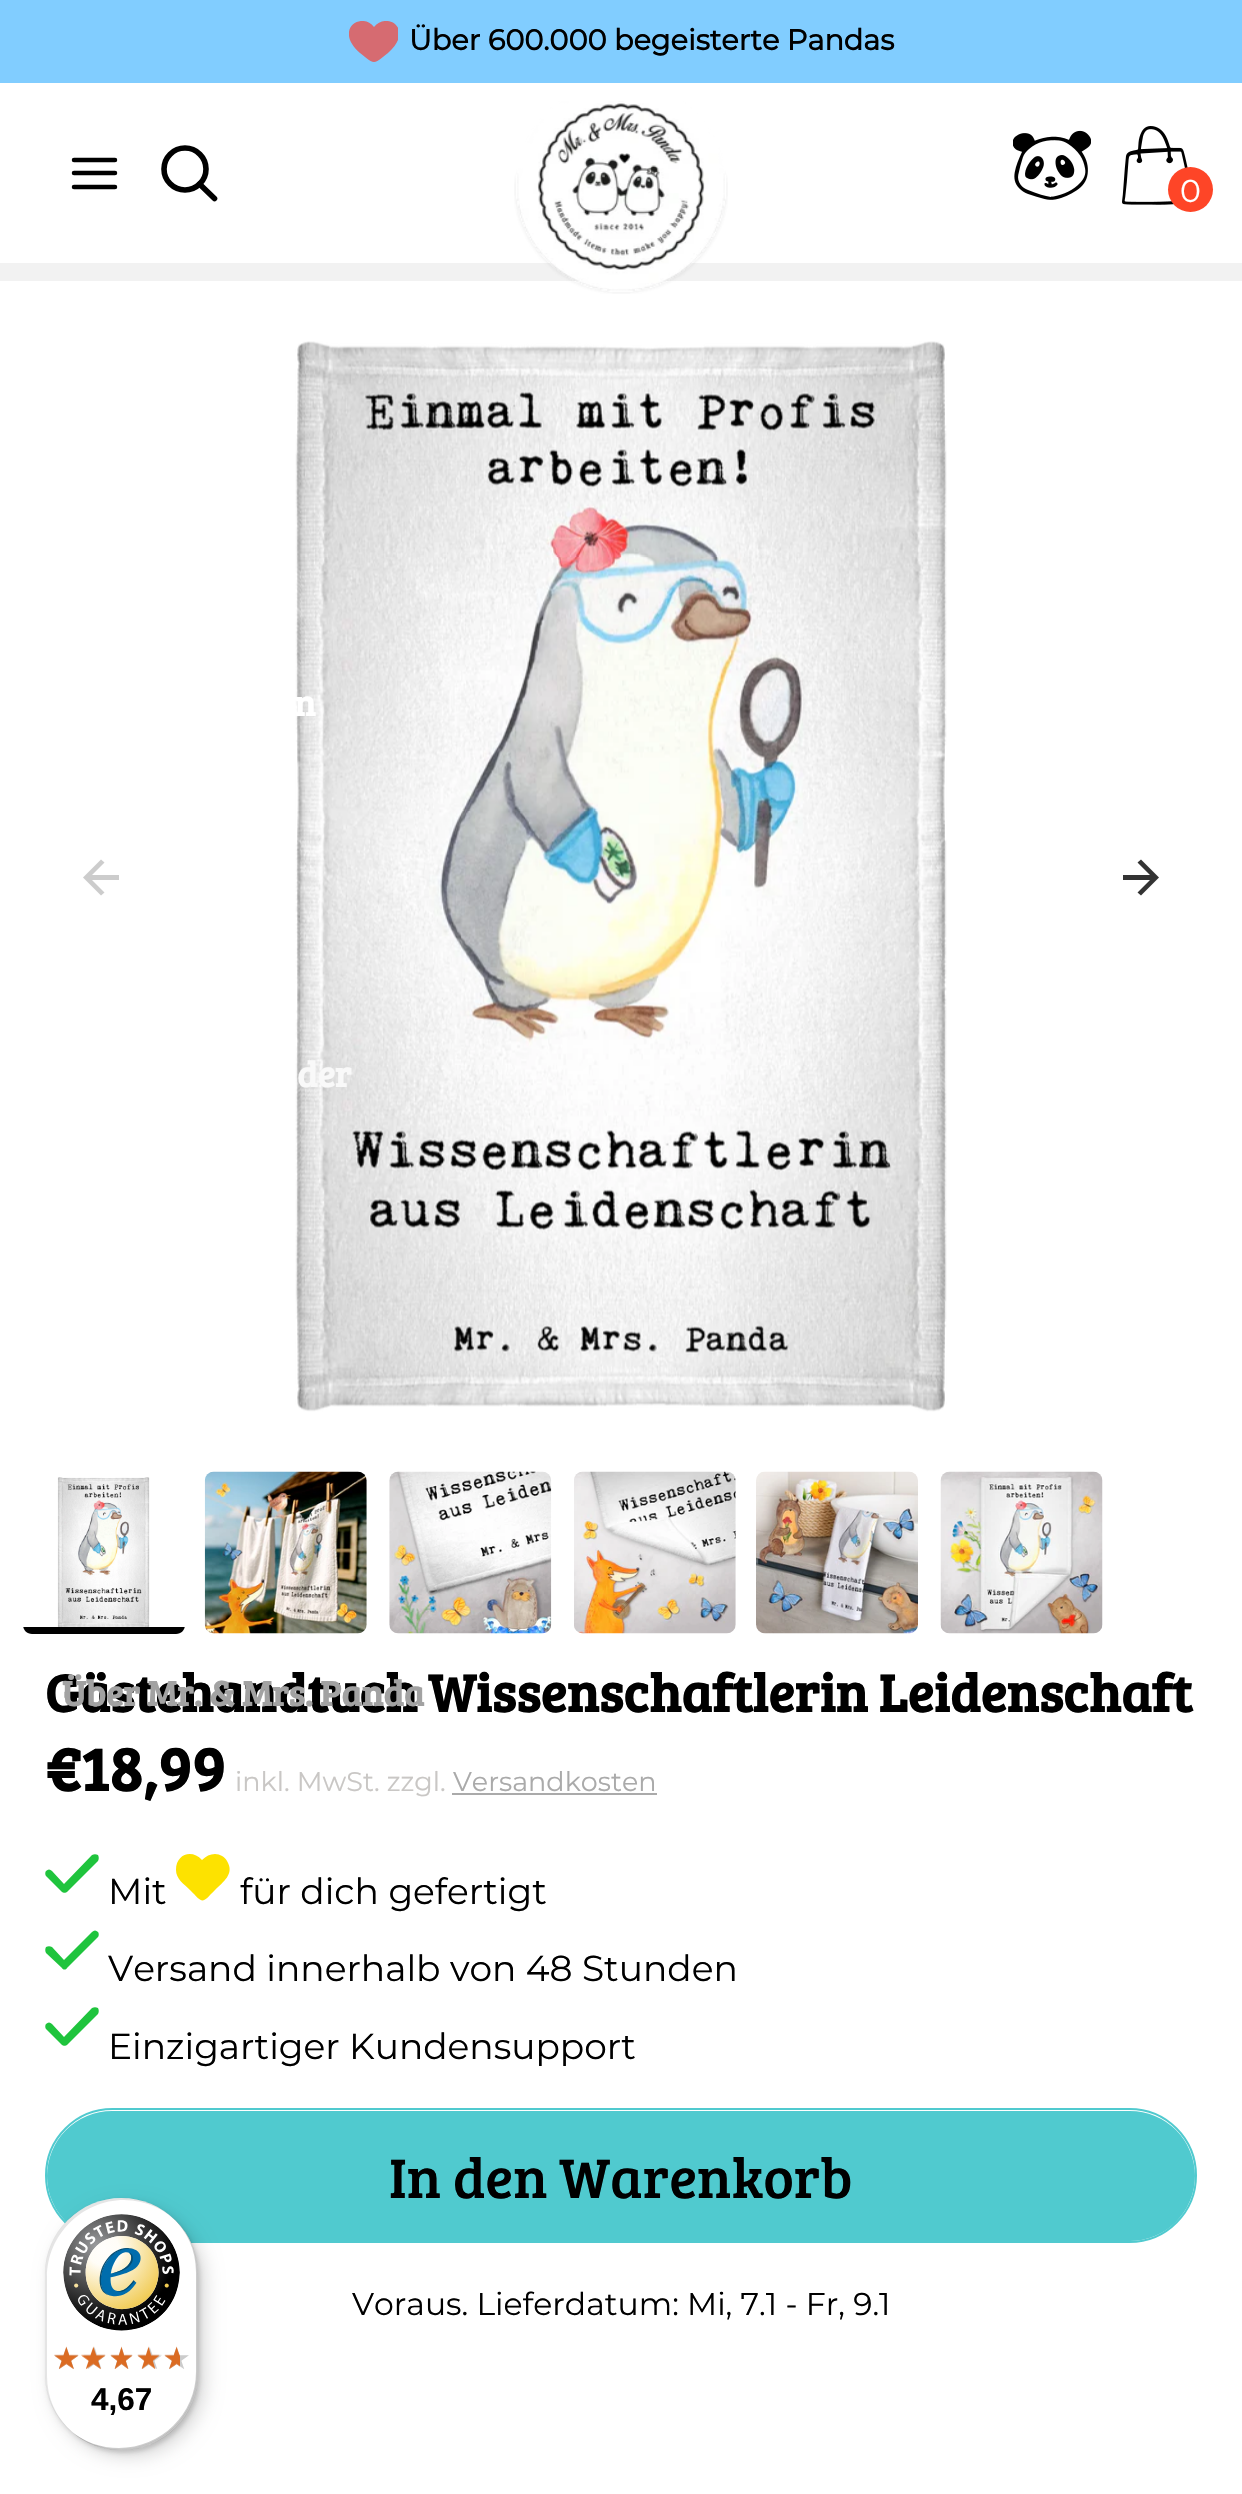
void draw(SkCanvas* canvas) {
	SkPaint fill;
	fill.setAntiAlias(true);
	auto makeFont = [&](const char* family, int weight, float size, bool italic = false) {
		SkFontStyle style(weight, SkFontStyle::kNormal_Width,
			italic ? SkFontStyle::kItalic_Slant : SkFontStyle::kUpright_Slant);
		SkFont result(fontMgr->matchFamilyStyle(family, style), size);
		result.setSubpixel(true);
		return result;
	};
	auto text = [&](const char* s, float x, float y, const SkFont& font) {
		canvas->drawString(s, x, y, font, fill);
	};
	auto box = [&](float l, float t, float r, float b) {
		canvas->drawRect(SkRect::MakeLTRB(l, t, r, b), fill);
	};
	auto roundBox = [&](float l, float t, float r, float b, float radius) {
		canvas->drawRoundRect(SkRect::MakeLTRB(l, t, r, b), radius, radius, fill);
	};
	auto picture = [&](const char* path, float l, float t, float r, float b) {
		auto image = SkImages::DeferredFromEncodedData(SkData::MakeFromFileName(path));
		canvas->drawImageRect(image, SkRect::MakeLTRB(l, t, r, b), SkSamplingOptions());
	};
	canvas->clear(0xFFFFFFFF);
	fill.setColor(0xFF81CDFF);
	box(0, 0, 1242, 83);
	canvas->save();
	canvas->clipRect(SkRect::MakeLTRB(349, 21, 398, 62));
	fill.setColor(0xFFD66B71);
	canvas->drawPath(SkPathBuilder().moveTo(374, 62).cubicTo(370, 62, 363, 55, 360, 53).cubicTo(333, 29, 362, 11, 374, 27).cubicTo(387, 11, 415, 29, 388, 53).cubicTo(385, 55, 378, 62, 374, 62).detach(), fill);
	canvas->restore();
	fill.setStyle(SkPaint::kStroke_Style);
	fill.setStrokeWidth(4.5f);
	fill.setStrokeCap(SkPaint::kRound_Cap);
	fill.setColor(0xFF000000);
	canvas->drawPath(SkPathBuilder().moveTo(74, 173).lineTo(115, 173).moveTo(74, 160).lineTo(115, 160).moveTo(74, 187).lineTo(115, 187).detach(), fill);
	fill.setStrokeWidth(5.6f);
	fill.setStrokeCap(SkPaint::kButt_Cap);
	canvas->drawCircle(185, 169, 21, fill);
	fill.setStrokeCap(SkPaint::kRound_Cap);
	canvas->drawPath(SkPathBuilder().moveTo(214.5f, 198.5f).lineTo(199.5f, 184).detach(), fill);
	fill.setStyle(SkPaint::kFill_Style);
	fill.setColor(0xFFF2F2F2);
	box(0, 263, 1242, 281);
	picture("image0.png", 514, 101, 728, 294);
	picture("image1.png", 1013, 130, 1091, 200);
	picture("image2.png", 1122, 126, 1188, 205);
	fill.setColor(0xFFFE4527);
	canvas->drawCircle(1190.5f, 189.5f, 22.5f, fill);
	fill.setColor(0xFFCCCCCC);
	canvas->drawPath(SkPathBuilder().moveTo(119, 875).lineTo(92, 875).lineTo(104.5f, 862.5f).lineTo(101, 859.5f).lineTo(83, 877.5f).lineTo(101, 895.5f).lineTo(104.5f, 892.5f).lineTo(92, 880).lineTo(119, 880).close().detach(), fill);
	picture("image3.png", 295, 341, 947, 1412);
	fill.setColor(0xFF333333);
	canvas->drawPath(SkPathBuilder().moveTo(1141, 859.5f).lineTo(1137.5f, 862.5f).lineTo(1150, 875).lineTo(1123, 875).lineTo(1123, 880).lineTo(1150, 880).lineTo(1137.5f, 892.5f).lineTo(1141, 895.5f).lineTo(1159, 877.5f).close().detach(), fill);
	picture("image4.png", 57, 1477, 150, 1627);
	canvas->save();
	canvas->clipPath(SkPathBuilder().moveTo(32, 1472).lineTo(176, 1472).cubicTo(181, 1472, 185, 1476, 185, 1481).lineTo(185, 1625).cubicTo(185, 1630, 181, 1634, 176, 1634).lineTo(32, 1634).cubicTo(27, 1634, 23, 1630, 23, 1625).lineTo(23, 1481).cubicTo(23, 1476, 27, 1472, 32, 1472).close().detach(), true);
	fill.setColor(0xFF000000);
	box(23, 1627, 185, 1634);
	canvas->restore();
	picture("image5.png", 204, 1471, 367, 1634);
	picture("image6.png", 389, 1471, 552, 1634);
	picture("image7.png", 574, 1471, 736, 1634);
	picture("image8.png", 756, 1471, 918, 1634);
	picture("image9.png", 940, 1471, 1103, 1634);
	fill.setColor(0xFFAAAAAA);
	box(452, 1793, 657, 1795);
	fill.setColor(0xFF1FC43D);
	canvas->drawPath(SkPathBuilder().moveTo(98, 1855).cubicTo(99, 1857, 99, 1859, 98, 1861).lineTo(67, 1892).cubicTo(66, 1893, 63, 1893, 62, 1892).lineTo(46, 1876).cubicTo(45, 1875, 45, 1872, 46, 1871).cubicTo(48, 1869, 50, 1869, 52, 1871).lineTo(64, 1884).lineTo(92, 1855).cubicTo(94, 1854, 96, 1854, 98, 1855).close().detach(), fill);
	fill.setColor(0xFFFDE200);
	canvas->drawPath(SkPathBuilder().moveTo(176, 1870).cubicTo(176, 1854, 192, 1849, 202, 1860).cubicTo(206, 1856, 210, 1854, 215, 1854).cubicTo(220, 1854, 225, 1857, 227, 1861).cubicTo(235, 1874, 223, 1882, 215, 1890).cubicTo(201, 1904, 204, 1904, 190, 1890).cubicTo(184, 1884, 176, 1879, 176, 1870).close().detach(), fill);
	fill.setColor(0xFF1FC43D);
	canvas->drawPath(SkPathBuilder().moveTo(98, 1932).cubicTo(99, 1933, 99, 1936, 98, 1937).lineTo(67, 1968).cubicTo(66, 1970, 63, 1970, 62, 1968).lineTo(46, 1953).cubicTo(45, 1951, 45, 1949, 46, 1947).cubicTo(48, 1946, 50, 1946, 52, 1947).lineTo(64, 1960).lineTo(92, 1932).cubicTo(94, 1930, 96, 1930, 98, 1932).close().detach(), fill);
	canvas->drawPath(SkPathBuilder().moveTo(98, 2008).cubicTo(99, 2010, 99, 2012, 98, 2014).lineTo(67, 2045).cubicTo(66, 2046, 63, 2046, 62, 2045).lineTo(46, 2029).cubicTo(45, 2028, 45, 2025, 46, 2024).cubicTo(48, 2022, 50, 2022, 52, 2024).lineTo(64, 2037).lineTo(92, 2008).cubicTo(94, 2007, 96, 2007, 98, 2008).close().detach(), fill);
	fill.setStyle(SkPaint::kStroke_Style);
	fill.setStrokeWidth(2);
	fill.setStrokeCap(SkPaint::kButt_Cap);
	fill.setColor(0xFF50CACF);
	canvas->drawRoundRect(SkRect::MakeLTRB(46, 2109, 1196, 2242), 66.5f, 66.5f, fill);
	fill.setStyle(SkPaint::kFill_Style);
	roundBox(47, 2111, 1195, 2241, 65);
	fill.setColor(0x26000000);
	fill.setMaskFilter(SkMaskFilter::MakeBlur(kNormal_SkBlurStyle, 9));
	canvas->drawRoundRect(SkRect::MakeLTRB(52, 2205, 205, 2457), 76.5f, 76.5f, fill);
	fill.setMaskFilter(nullptr);
	fill.setMaskFilter(SkMaskFilter::MakeBlur(kNormal_SkBlurStyle, 2));
	canvas->drawRoundRect(SkRect::MakeLTRB(47, 2201, 200, 2453), 76.5f, 76.5f, fill);
	fill.setMaskFilter(nullptr);
	fill.setColor(0xFFFFFFFF);
	roundBox(45, 2198, 198, 2450, 76.5f);
	fill.setColor(0x1A000000);
	canvas->drawPath(SkPathBuilder().moveTo(124, 2200).cubicTo(146, 2200, 165, 2209, 179, 2224).cubicTo(165, 2208, 145, 2198, 122, 2198).cubicTo(79, 2198, 45, 2232, 45, 2274).lineTo(45, 2374).cubicTo(45, 2397, 55, 2417, 71, 2431).cubicTo(56, 2417, 47, 2398, 47, 2376).lineTo(47, 2277).cubicTo(47, 2235, 82, 2200, 124, 2200).close().detach(), fill);
	fill.setColor(0x33000000);
	canvas->drawPath(SkPathBuilder().moveTo(71, 2431).cubicTo(84, 2443, 102, 2450, 122, 2450).cubicTo(164, 2450, 198, 2416, 198, 2374).lineTo(198, 2274).cubicTo(198, 2251, 188, 2231, 172, 2217).cubicTo(187, 2231, 196, 2250, 196, 2272).lineTo(196, 2372).cubicTo(196, 2414, 161, 2448, 119, 2448).cubicTo(101, 2448, 84, 2442, 71, 2431).close().detach(), fill);
	fill.setColor(0x33323232);
	canvas->drawPath(SkPathBuilder().moveTo(73, 2433).cubicTo(86, 2444, 103, 2450, 122, 2450).cubicTo(164, 2450, 198, 2416, 198, 2374).lineTo(198, 2274).cubicTo(198, 2250, 186, 2228, 169, 2214).cubicTo(186, 2228, 197, 2249, 197, 2273).lineTo(197, 2372).cubicTo(197, 2415, 162, 2449, 120, 2449).cubicTo(102, 2449, 86, 2443, 73, 2433).close().detach(), fill);
	fill.setColor(0x4DFFFFFF);
	canvas->drawPath(SkPathBuilder().moveTo(76, 2435).cubicTo(88, 2444, 104, 2450, 122, 2450).cubicTo(164, 2450, 198, 2416, 198, 2374).lineTo(198, 2274).cubicTo(198, 2254, 190, 2235, 177, 2222).cubicTo(189, 2235, 197, 2254, 197, 2274).lineTo(197, 2373).cubicTo(197, 2415, 163, 2449, 120, 2449).cubicTo(103, 2449, 88, 2444, 76, 2435).close().detach(), fill);
	picture("image10.png", 63, 2214, 180, 2331);
	picture("image11.png", 54, 2347, 79, 2369);
	picture("image12.png", 83, 2346, 106, 2369);
	picture("image13.png", 110, 2347, 133, 2369);
	picture("image14.png", 137, 2346, 162, 2369);
	picture("image15.png", 164, 2347, 189, 2369);
	picture("image16.png", 54, 2346, 79, 2370);
	picture("image17.png", 81, 2346, 106, 2370);
	picture("image18.png", 110, 2346, 133, 2369);
	picture("image19.png", 137, 2346, 160, 2369);
	picture("image20.png", 164, 2346, 180, 2370);
	auto font1 = makeFont("Montserrat", 700, 28.75f);
	fill.setColor(0xFF000000);
	text("Über 600.000 begeisterte Pandas", 409, 50, font1);
	auto font2 = makeFont("Montserrat", 400, 31.5f);
	fill.setColor(0xFFFFFFFF);
	text("0", 1180, 202, font2);
	auto font3 = makeFont("Bree Serif", 700, 36);
	text("n", 294, 716, font3);
	fill.setColor(0xFFF9F9F9);
	text("der", 297, 1087, font3);
	auto font4 = makeFont("Bree Serif", 700, 54);
	fill.setColor(0xFF000000);
	text("Gästehandtuch Wissenschaftlerin Leidenschaft", 45, 1712, font4);
	fill.setColor(0xFFA2A2A2);
	text("Über Mr. & Mrs. Panda", 62, 1706, font3);
	auto font5 = makeFont("Bree Serif", 700, 63);
	fill.setColor(0xFF000000);
	text("€18,99", 45, 1791, font5);
	auto font6 = makeFont("Montserrat", 400, 27);
	fill.setColor(0xFFC9C7C5);
	text("inkl. MwSt. zzgl.", 235, 1791, font6);
	fill.setColor(0xFFAAAAAA);
	text("Versandkosten", 453, 1791, font6);
	auto font7 = makeFont("Montserrat", 400, 36);
	fill.setColor(0xFF000000);
	text("Mit", 108, 1904, font7);
	text("für dich gefertigt", 240, 1904, font7);
	text("Versand innerhalb von 48 Stunden", 108, 1981, font7);
	text("Einzigartiger Kundensupport", 108, 2059, font7);
	auto font8 = makeFont("Bree Serif", 400, 57.5f);
	text("In den Warenkorb", 389, 2198, font8);
	text("Voraus. Lieferdatum: Mi, 7.1 - Fr, 9.1", 352, 2315, font2);
	auto font9 = makeFont("Liberation Sans", 700, 31.5f);
	text("4,67", 91, 2410, font9);
}
